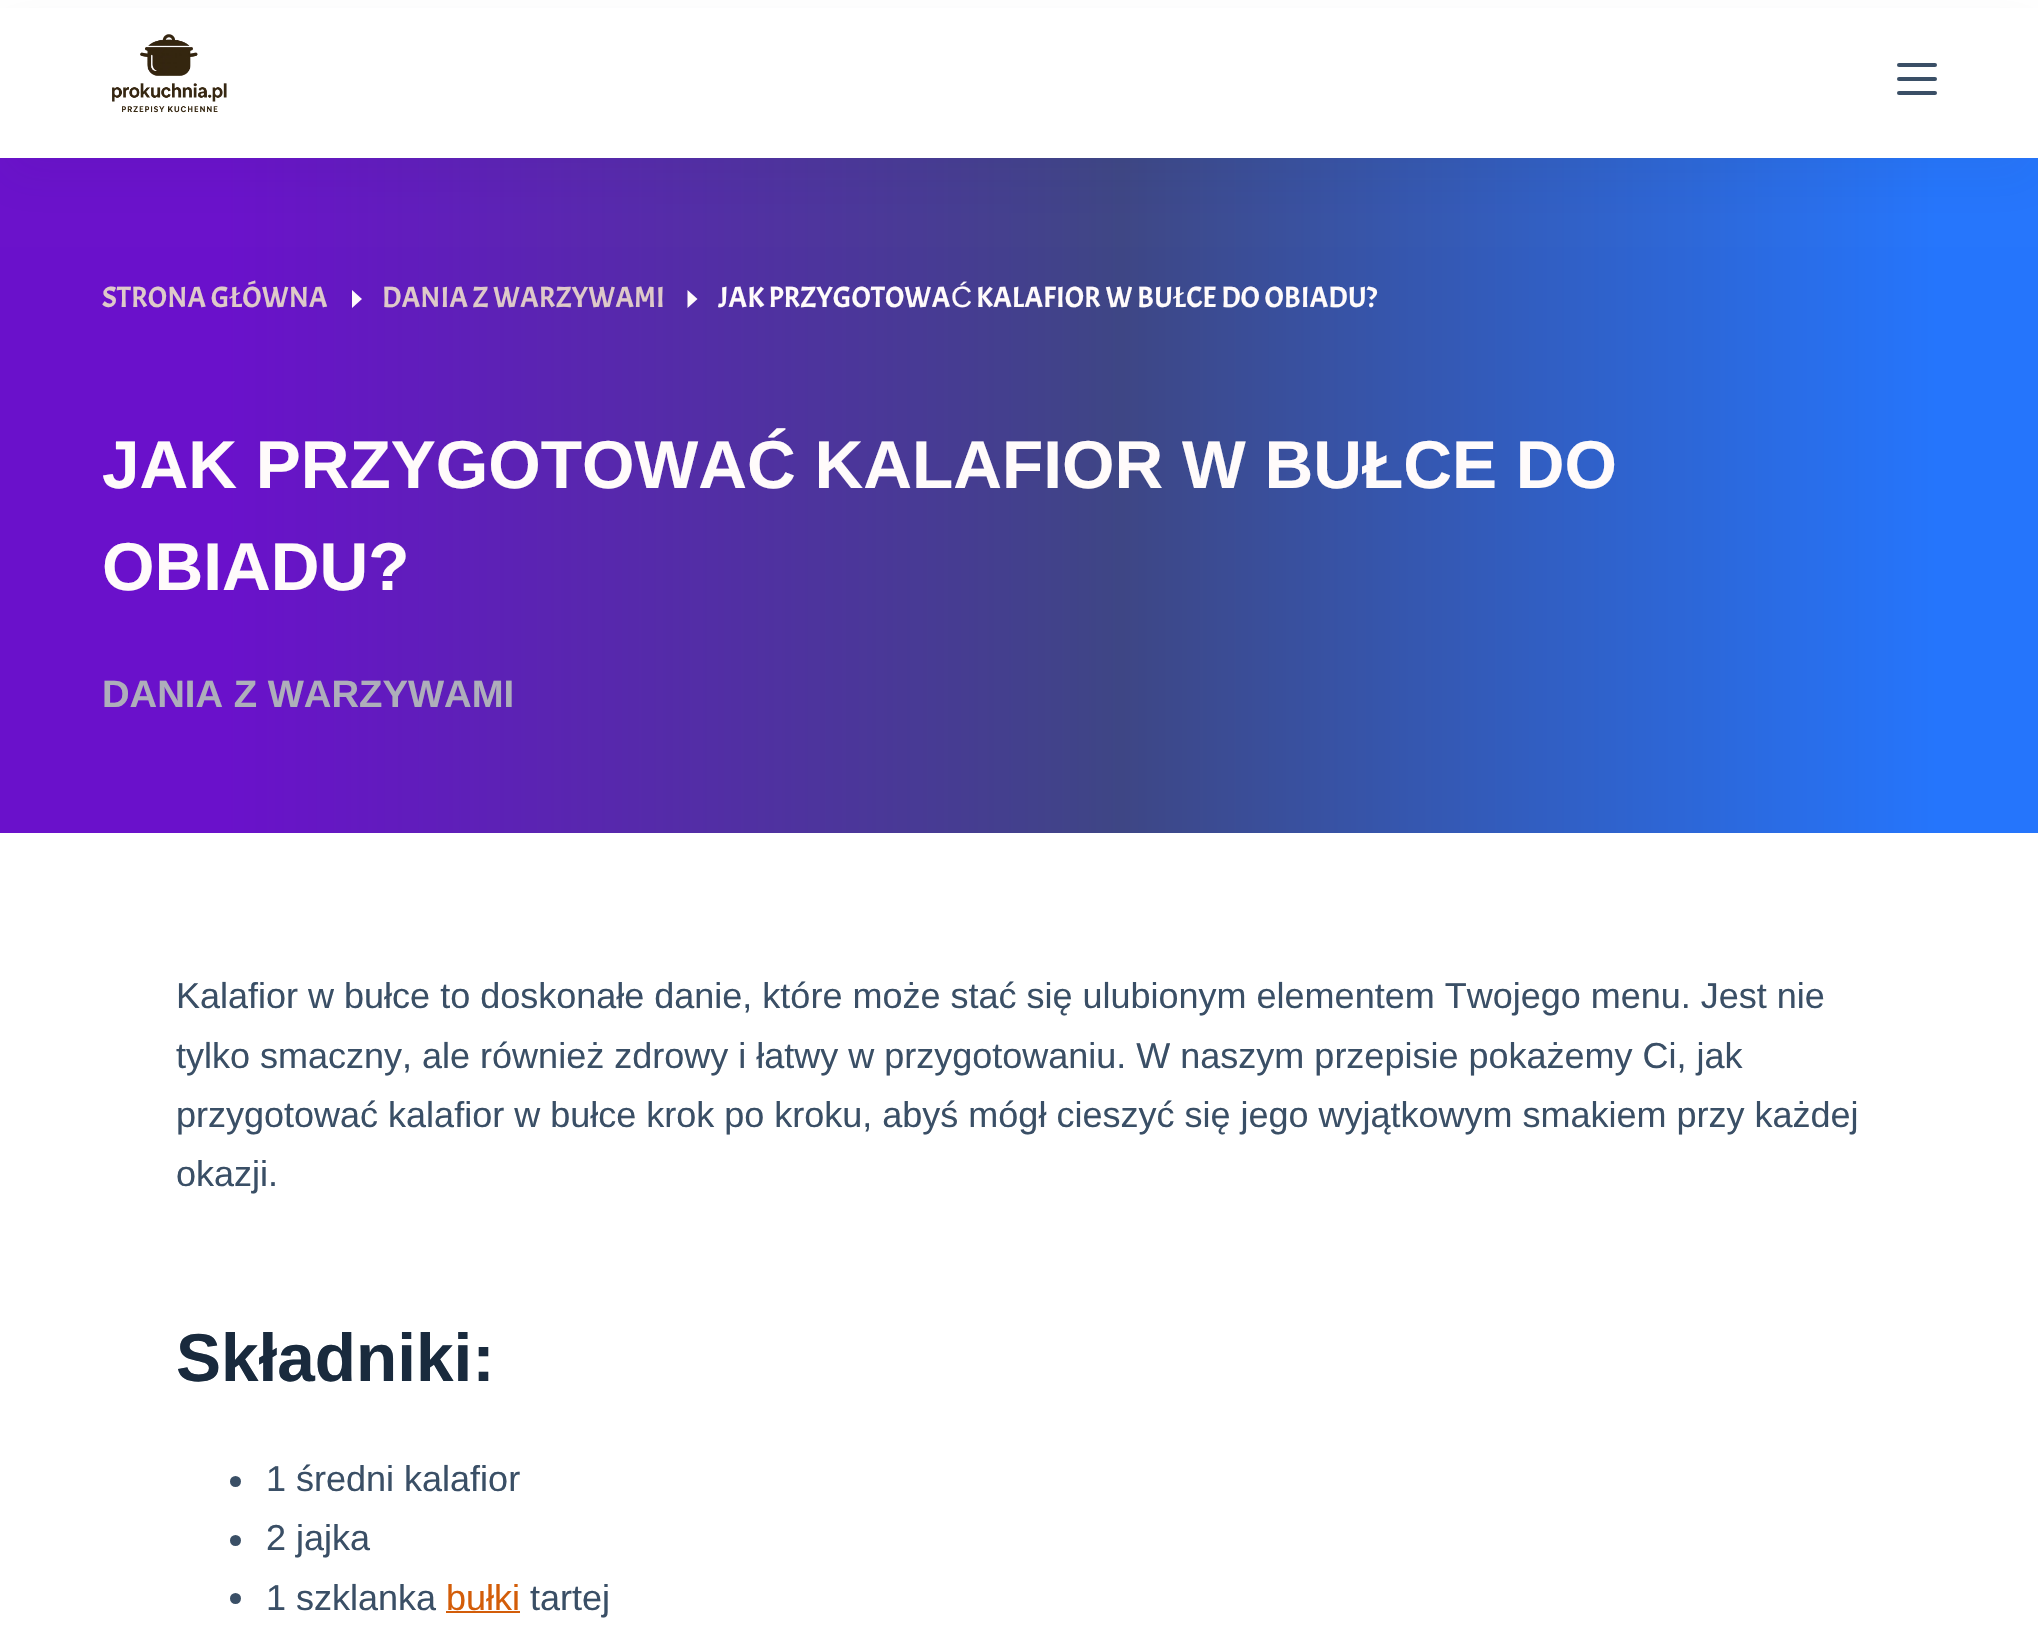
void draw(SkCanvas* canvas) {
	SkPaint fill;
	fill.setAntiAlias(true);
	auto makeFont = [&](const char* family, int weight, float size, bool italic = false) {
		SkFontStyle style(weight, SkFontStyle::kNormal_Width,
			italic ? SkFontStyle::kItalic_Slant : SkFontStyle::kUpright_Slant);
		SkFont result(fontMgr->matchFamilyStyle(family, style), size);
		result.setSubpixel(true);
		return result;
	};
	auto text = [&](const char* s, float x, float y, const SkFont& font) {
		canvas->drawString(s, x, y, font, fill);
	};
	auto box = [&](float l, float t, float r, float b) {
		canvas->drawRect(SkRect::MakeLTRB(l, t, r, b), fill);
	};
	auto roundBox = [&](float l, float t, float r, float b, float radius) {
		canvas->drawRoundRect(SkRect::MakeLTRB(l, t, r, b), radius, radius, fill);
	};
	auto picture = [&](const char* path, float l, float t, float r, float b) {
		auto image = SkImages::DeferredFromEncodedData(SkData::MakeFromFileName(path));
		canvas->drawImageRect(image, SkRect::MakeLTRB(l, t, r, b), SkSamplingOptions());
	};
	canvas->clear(0xFFFFFFFF);
	{
		const SkColor colors[] = {0xFF6A11CB, 0xFF3E4685, 0xFF2575FC};
		const float stops[] = {0.11f, 0.55f, 0.95f};
		const SkPoint ends[] = {{0, 495}, {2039, 495}};
		fill.setShader(SkGradientShader::MakeLinear(ends, colors, stops, 3, SkTileMode::kClamp));
		fill.setAlpha(255);
	}
	box(0, 158, 2038, 833);
	fill.setShader(nullptr);
	fill.setColor(0x0D2C3E50);
	fill.setMaskFilter(SkMaskFilter::MakeBlur(kNormal_SkBlurStyle, 22.5f));
	canvas->drawRect(SkRect::MakeLTRB(0, 23, 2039, 180), fill);
	fill.setMaskFilter(nullptr);
	fill.setColor(0xFFFFFFFF);
	box(0, 8, 2038, 158);
	picture("image0.png", 112, 34, 227, 113);
	fill.setColor(0xFF3A4F66);
	roundBox(1897, 63, 1937, 67, 2);
	roundBox(1897, 77, 1937, 81, 2);
	roundBox(1897, 91, 1937, 95, 2);
	fill.setColor(0xFFFFFBFB);
	canvas->drawPath(SkPathBuilder().moveTo(352, 290).lineTo(362, 299).lineTo(352, 308).close().detach(), fill);
	canvas->drawPath(SkPathBuilder().moveTo(687.5f, 290).lineTo(697.5f, 299).lineTo(687.5f, 308).close().detach(), fill);
	fill.setColor(0xFF3A4F66);
	canvas->drawCircle(235.5f, 1481.5f, 5.5f, fill);
	canvas->drawCircle(235.5f, 1540.5f, 5.5f, fill);
	canvas->drawCircle(235.5f, 1598.5f, 5.5f, fill);
	fill.setColor(0xFFD35D09);
	box(446, 1611, 520, 1613);
	auto font1 = makeFont("Acme", 400, 29.25f);
	fill.setColor(0xFFDEC9C9);
	text("STRONA GŁÓWNA", 102, 307, font1);
	text("DANIA Z WARZYWAMI", 382, 307, font1);
	fill.setColor(0xFFFFFBFB);
	text("JAK PRZYGOTOWA", 718, 307, font1);
	auto font2 = makeFont("Liberation Sans", 400, 29.25f);
	text("Ć", 951, 307, font2);
	text("KALAFIOR W BUŁCE DO OBIADU?", 976, 307, font1);
	auto font3 = makeFont("Liberation Sans", 700, 67.5f);
	text("JAK PRZYGOTOWAĆ KALAFIOR W BUŁCE DO", 102, 488, font3);
	text("OBIADU?", 102, 590, font3);
	auto font4 = makeFont("Liberation Sans", 700, 38.25f);
	fill.setColor(0xFFAEAEBA);
	text("DANIA Z WARZYWAMI", 102, 707, font4);
	auto font5 = makeFont("Liberation Sans", 400, 36);
	fill.setColor(0xFF3A4F66);
	text("Kalafior w bułce to doskonałe danie, które może stać się ulubionym elementem Twojego menu. Jest nie", 176, 1008, font5);
	text("tylko smaczny, ale również zdrowy i łatwy w przygotowaniu. W naszym przepisie pokażemy Ci, jak", 176, 1068, font5);
	text("przygotować kalafior w bułce krok po kroku, abyś mógł cieszyć się jego wyjątkowym smakiem przy każdej", 176, 1127, font5);
	text("okazji.", 176, 1186, font5);
	fill.setColor(0xFF192A3D);
	text("Składniki:", 176, 1381, font3);
	fill.setColor(0xFF3A4F66);
	text("1 średni kalafior", 266, 1491, font5);
	text("2 jajka", 266, 1550, font5);
	text("1 szklanka", 266, 1610, font5);
	fill.setColor(0xFFD35D09);
	text("bułki", 446, 1610, font5);
	fill.setColor(0xFF3A4F66);
	text("tartej", 530, 1610, font5);
}
